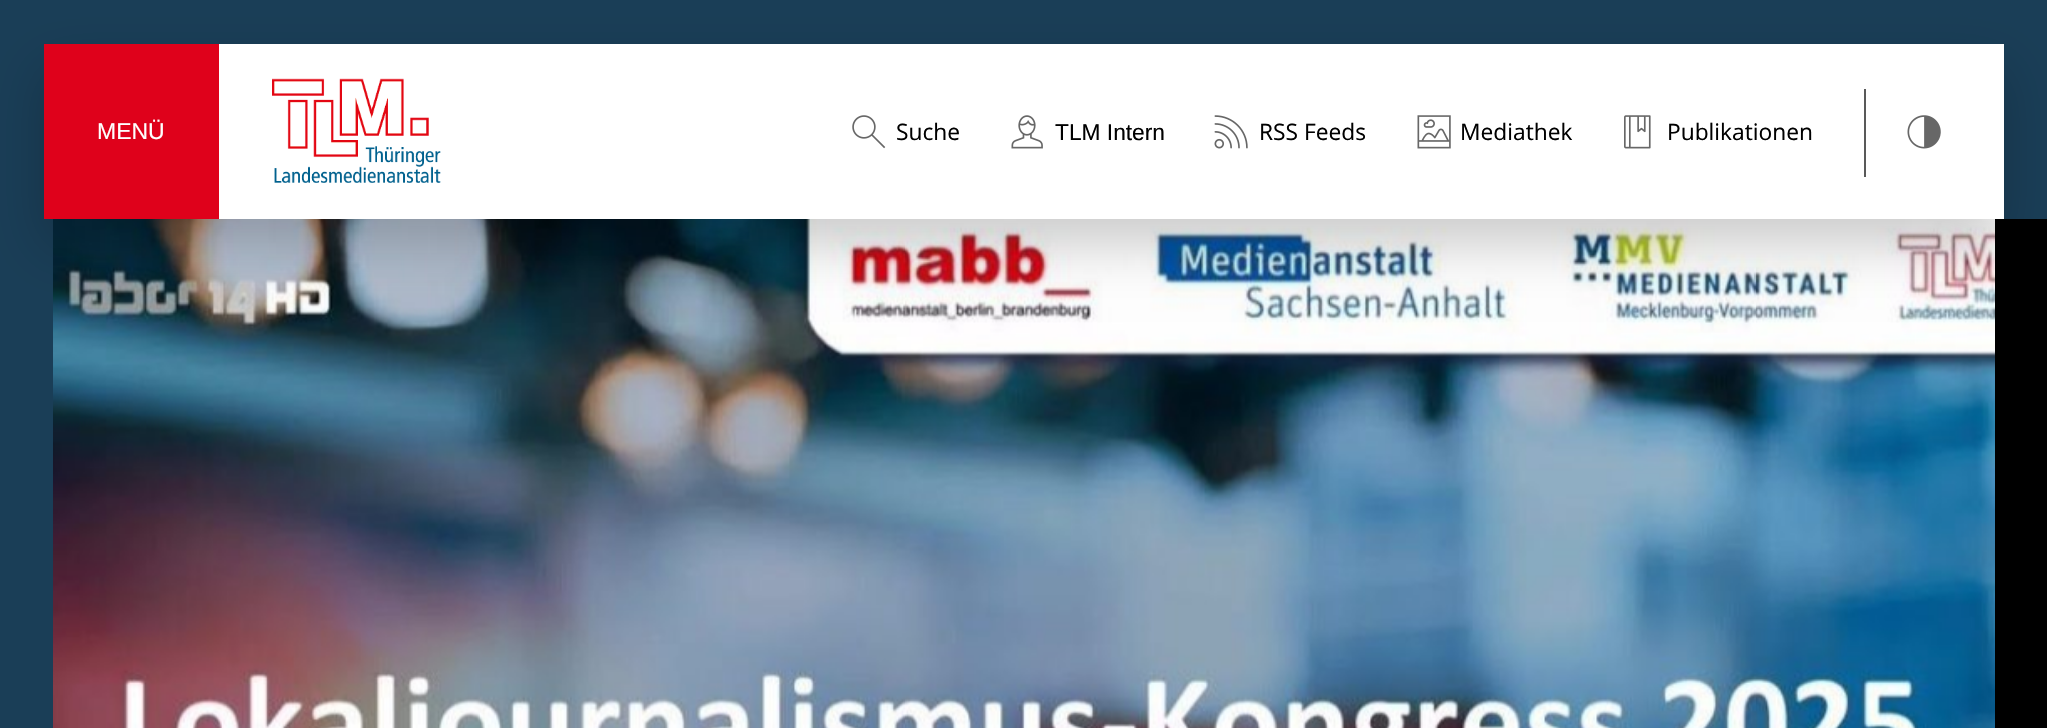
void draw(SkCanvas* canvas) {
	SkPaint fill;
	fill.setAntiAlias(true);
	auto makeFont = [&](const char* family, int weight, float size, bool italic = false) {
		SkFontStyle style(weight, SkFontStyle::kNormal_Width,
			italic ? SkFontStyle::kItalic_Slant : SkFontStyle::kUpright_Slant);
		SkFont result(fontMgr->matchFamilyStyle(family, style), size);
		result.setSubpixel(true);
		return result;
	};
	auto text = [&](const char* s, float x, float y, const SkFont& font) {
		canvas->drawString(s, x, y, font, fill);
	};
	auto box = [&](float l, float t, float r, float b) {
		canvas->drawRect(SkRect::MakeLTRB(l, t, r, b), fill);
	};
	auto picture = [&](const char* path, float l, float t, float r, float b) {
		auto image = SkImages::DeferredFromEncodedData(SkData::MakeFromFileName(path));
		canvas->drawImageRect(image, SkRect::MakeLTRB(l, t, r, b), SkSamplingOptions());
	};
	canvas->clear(0xFF1A3E57);
	picture("image7.png", 53, 219, 1995, 728);
	fill.setColor(0xFF000000);
	box(1995, 219, 2047, 728);
	fill.setColor(0x33000000);
	fill.setMaskFilter(SkMaskFilter::MakeBlur(kNormal_SkBlurStyle, 26));
	canvas->drawRect(SkRect::MakeLTRB(44, 70, 2004, 245), fill);
	fill.setMaskFilter(nullptr);
	fill.setColor(0xFFFFFFFF);
	box(219, 44, 2004, 219);
	fill.setColor(0xFFDF011B);
	box(44, 44, 219, 219);
	picture("image0.png", 272, 78, 441, 183);
	picture("image1.png", 852, 115, 886, 149);
	picture("image2.png", 1011, 115, 1043, 149);
	picture("image3.png", 1214, 115, 1248, 149);
	picture("image4.png", 1417, 115, 1451, 149);
	picture("image5.png", 1624, 115, 1651, 149);
	fill.setColor(0xFF595959);
	box(1864, 89, 1866, 177);
	picture("image6.png", 1907, 115, 1941, 149);
	auto font1 = makeFont("Liberation Sans", 400, 23);
	fill.setColor(0xFFFFFFFF);
	text("MENÜ", 97, 139, font1);
	auto font2 = makeFont("Open Sans", 400, 22.75f);
	fill.setColor(0xFF000000);
	text("Suche", 896, 140, font2);
	auto font3 = makeFont("Liberation Sans", 400, 22.75f);
	text("TLM Intern", 1055, 140, font3);
	text("RSS Feeds", 1259, 140, font2);
	text("Mediathek", 1460, 140, font2);
	text("Publikationen", 1667, 140, font2);
}
